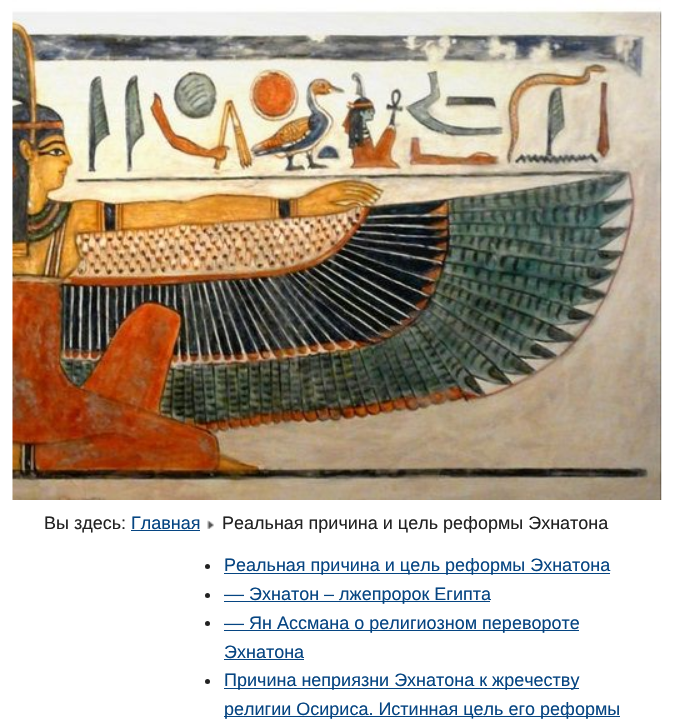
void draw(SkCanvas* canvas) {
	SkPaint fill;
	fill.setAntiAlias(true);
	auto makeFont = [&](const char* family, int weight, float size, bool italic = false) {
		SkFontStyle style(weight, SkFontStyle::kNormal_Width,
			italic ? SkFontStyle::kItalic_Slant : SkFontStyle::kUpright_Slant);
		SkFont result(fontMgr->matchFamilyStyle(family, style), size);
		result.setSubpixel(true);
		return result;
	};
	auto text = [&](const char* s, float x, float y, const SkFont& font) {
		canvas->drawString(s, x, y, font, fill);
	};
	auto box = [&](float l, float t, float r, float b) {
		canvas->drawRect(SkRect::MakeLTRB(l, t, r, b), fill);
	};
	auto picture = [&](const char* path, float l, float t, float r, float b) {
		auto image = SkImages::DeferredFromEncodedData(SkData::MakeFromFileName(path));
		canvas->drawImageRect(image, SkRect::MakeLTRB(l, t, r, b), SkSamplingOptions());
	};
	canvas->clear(0xFFFFFFFF);
	picture("image0.png", 12, 0, 662, 500);
	fill.setColor(0xFF064582);
	box(131, 530, 200, 531);
	picture("image1.png", 207, 520, 214, 529);
	fill.setColor(0xFF222222);
	canvas->drawCircle(207.5f, 566.5f, 2.5f, fill);
	fill.setColor(0xFF064582);
	box(224, 573, 610, 574);
	fill.setColor(0xFF222222);
	canvas->drawCircle(207.5f, 595.5f, 2.5f, fill);
	fill.setColor(0xFF064582);
	box(224, 601, 490, 602);
	fill.setColor(0xFF222222);
	canvas->drawCircle(207.5f, 623.5f, 2.5f, fill);
	fill.setColor(0xFF064582);
	box(224, 630, 579, 631);
	box(224, 659, 304, 660);
	fill.setColor(0xFF222222);
	canvas->drawCircle(207.5f, 681.5f, 2.5f, fill);
	fill.setColor(0xFF064582);
	box(224, 688, 579, 689);
	box(224, 716, 620, 717);
	auto font1 = makeFont("Liberation Sans", 400, 18);
	fill.setColor(0xFF222222);
	text("Вы здесь:", 44, 529, font1);
	fill.setColor(0xFF064582);
	text("Главная", 131, 529, font1);
	fill.setColor(0xFF222222);
	text("Реальная причина и цель реформы Эхнатона", 222, 529, font1);
	fill.setColor(0xFF064582);
	text("Реальная причина и цель реформы Эхнатона", 224, 571, font1);
	text("–– Эхнатон – лжепророк Египта", 224, 600, font1);
	text("–– Ян Ассмана о религиозном перевороте", 224, 629, font1);
	text("Эхнатона", 224, 658, font1);
	text("Причина неприязни Эхнатона к жречеству", 224, 686, font1);
	text("религии Осириса. Истинная цель его реформы", 224, 715, font1);
}
